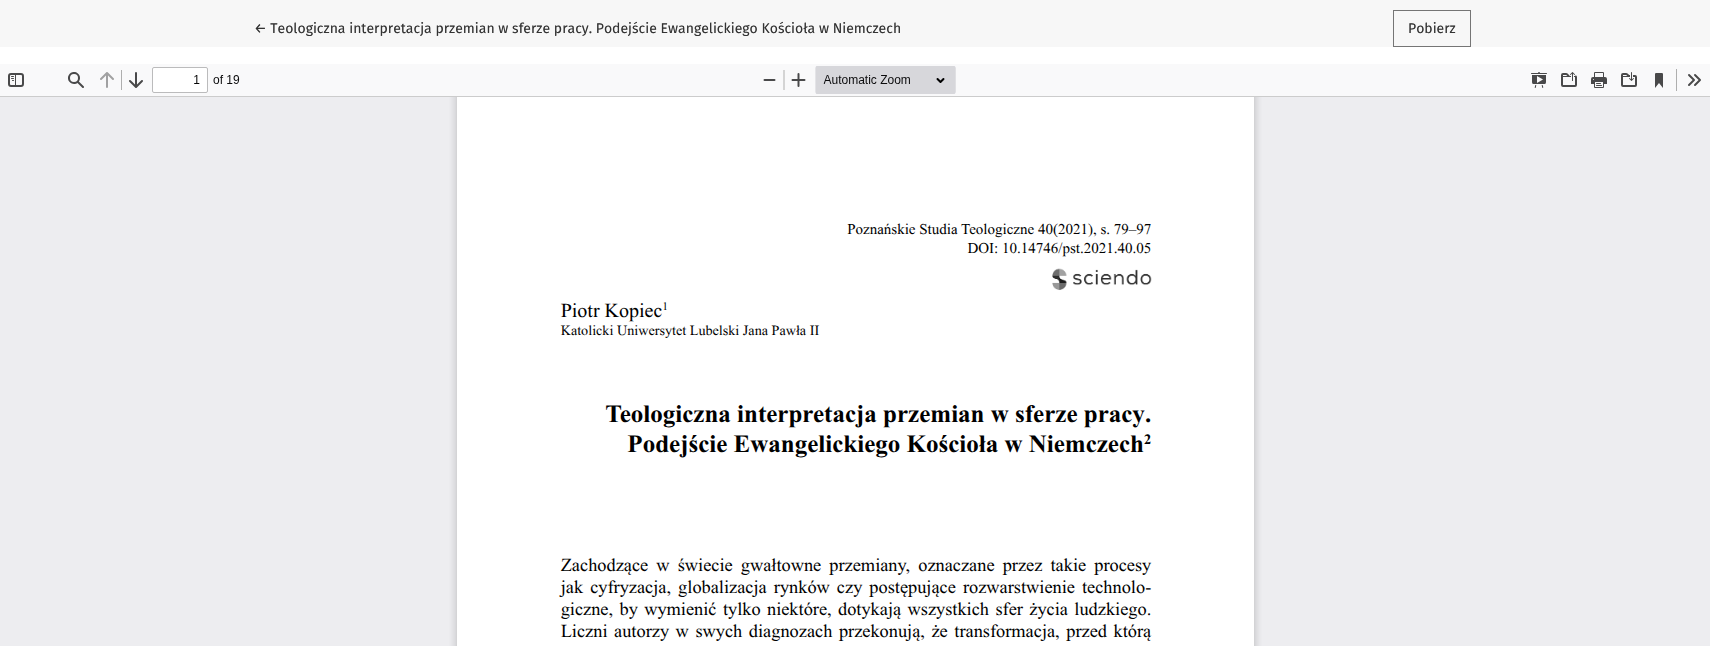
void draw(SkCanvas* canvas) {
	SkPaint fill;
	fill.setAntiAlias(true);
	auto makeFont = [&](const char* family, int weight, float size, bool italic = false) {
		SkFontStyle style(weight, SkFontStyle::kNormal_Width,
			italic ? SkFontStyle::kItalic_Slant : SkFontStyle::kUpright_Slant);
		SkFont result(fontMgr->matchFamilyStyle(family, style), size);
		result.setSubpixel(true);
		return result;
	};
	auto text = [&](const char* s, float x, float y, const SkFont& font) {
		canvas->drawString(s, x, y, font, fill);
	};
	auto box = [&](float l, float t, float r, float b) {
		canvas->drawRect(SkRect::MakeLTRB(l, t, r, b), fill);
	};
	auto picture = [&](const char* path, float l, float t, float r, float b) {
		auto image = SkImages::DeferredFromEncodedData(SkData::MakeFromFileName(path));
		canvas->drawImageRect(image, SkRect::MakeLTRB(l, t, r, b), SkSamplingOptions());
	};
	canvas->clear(0xFFFFFFFF);
	fill.setColor(0xFFF7F7F7);
	box(0, 0, 1710, 47);
	fill.setStyle(SkPaint::kStroke_Style);
	fill.setStrokeWidth(1);
	fill.setColor(0xFF757575);
	canvas->drawRect(SkRect::MakeLTRB(1393.5f, 10.5f, 1470.5f, 46.5f), fill);
	picture("image0.png", 0, 64, 1710, 646);
	auto font1 = makeFont("Fira Sans", 400, 14);
	fill.setStyle(SkPaint::kFill_Style);
	fill.setColor(0xFF333333);
	text("← Teologiczna interpretacja przemian w sferze pracy. Podejście Ewangelickiego Kościoła w Niemczech", 254, 33, font1);
	text("Pobierz", 1408, 33, font1);
}
